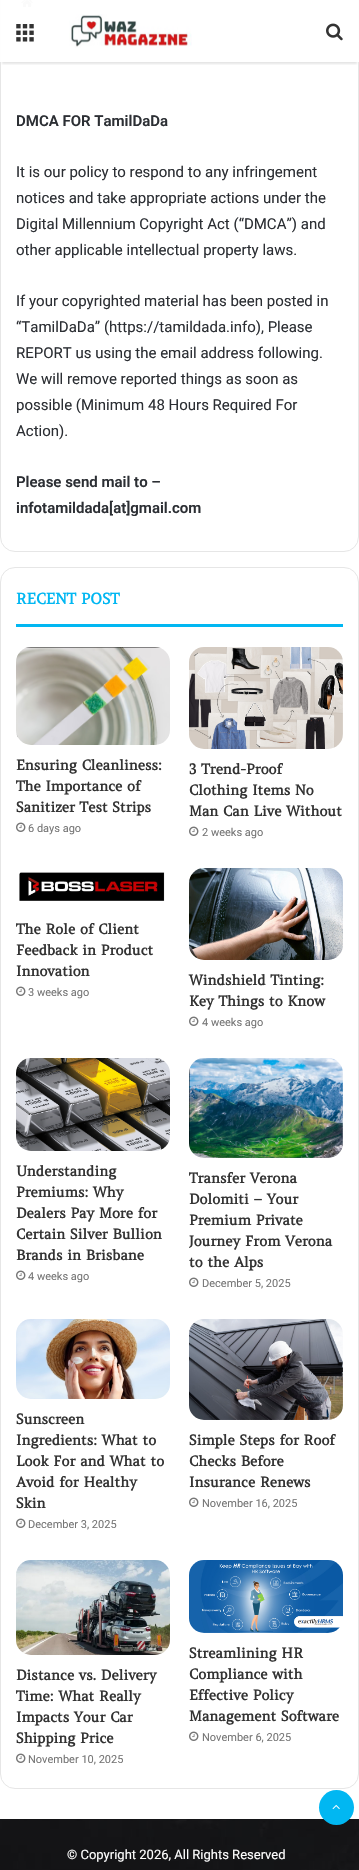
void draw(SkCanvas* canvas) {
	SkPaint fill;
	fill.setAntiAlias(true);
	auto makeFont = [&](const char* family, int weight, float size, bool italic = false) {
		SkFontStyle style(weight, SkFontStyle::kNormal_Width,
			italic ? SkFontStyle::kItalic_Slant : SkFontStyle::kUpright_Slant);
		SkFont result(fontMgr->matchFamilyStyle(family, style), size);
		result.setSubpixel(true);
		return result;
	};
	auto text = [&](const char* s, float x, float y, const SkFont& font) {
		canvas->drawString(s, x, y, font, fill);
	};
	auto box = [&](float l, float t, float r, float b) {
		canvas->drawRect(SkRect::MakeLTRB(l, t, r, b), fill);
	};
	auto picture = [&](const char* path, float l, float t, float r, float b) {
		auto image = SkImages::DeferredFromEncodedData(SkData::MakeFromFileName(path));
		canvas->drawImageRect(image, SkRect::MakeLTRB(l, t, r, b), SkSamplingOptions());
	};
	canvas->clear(0xFFFFFFFF);
	fill.setStyle(SkPaint::kStroke_Style);
	fill.setStrokeWidth(1);
	fill.setColor(0xFFE6E6E6);
	canvas->drawRoundRect(SkRect::MakeLTRB(0.5f, -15.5f, 358.5f, 551.5f), 14.5f, 14.5f, fill);
	picture("image3.png", 21, 0, 33, 8);
	canvas->save();
	canvas->clipRect(SkRect::MakeLTRB(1, 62, 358, 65));
	fill.setStyle(SkPaint::kFill_Style);
	fill.setColor(0x1A000000);
	fill.setMaskFilter(SkMaskFilter::MakeBlur(kNormal_SkBlurStyle, 1));
	canvas->drawRect(SkRect::MakeLTRB(2, 6, 357, 64), fill);
	fill.setMaskFilter(nullptr);
	canvas->restore();
	fill.setColor(0xF2FFFFFF);
	box(0, 0, 359, 62);
	picture("image0.png", 16, 24, 34, 42);
	picture("image1.png", 50, 14, 192, 48);
	picture("image2.png", 326, 23, 343, 41);
	fill.setStyle(SkPaint::kStroke_Style);
	fill.setColor(0xFFE6E6E6);
	canvas->drawRoundRect(SkRect::MakeLTRB(0.5f, 567.5f, 358.5f, 1788.5f), 14.5f, 14.5f, fill);
	fill.setStyle(SkPaint::kFill_Style);
	fill.setColor(0xFF01B7F2);
	box(16, 624, 343, 627);
	picture("image4.png", 16, 647, 170, 745);
	picture("image5.png", 16, 822, 26, 832);
	picture("image6.png", 189, 647, 343, 749);
	picture("image5.png", 189, 826, 199, 836);
	picture("image7.png", 19, 872, 165, 901);
	picture("image5.png", 16, 986, 26, 996);
	picture("image8.png", 189, 868, 343, 960);
	picture("image5.png", 189, 1016, 199, 1026);
	picture("image9.png", 16, 1058, 170, 1151);
	picture("image5.png", 16, 1270, 26, 1280);
	picture("image10.png", 189, 1058, 343, 1158);
	picture("image5.png", 189, 1277, 199, 1287);
	picture("image11.png", 16, 1319, 170, 1399);
	picture("image5.png", 16, 1518, 26, 1528);
	picture("image12.png", 189, 1319, 343, 1420);
	picture("image5.png", 189, 1497, 199, 1507);
	picture("image13.png", 16, 1560, 170, 1655);
	picture("image5.png", 16, 1753, 26, 1763);
	picture("image14.png", 189, 1560, 343, 1633);
	picture("image5.png", 189, 1731, 199, 1741);
	picture("image16.png", 0, 1819, 359, 1870);
	canvas->drawCircle(336.5f, 1807.5f, 17.5f, fill);
	picture("image15.png", 332, 1804, 340, 1810);
	auto font1 = makeFont("Roboto", 600, 15);
	fill.setColor(0xFF2C2F34);
	text("DMCA FOR TamilDaDa", 16, 126, font1);
	auto font2 = makeFont("Roboto", 400, 15);
	text("It is our policy to respond to any infringement", 16, 177, font2);
	text("notices and take appropriate actions under the", 16, 203, font2);
	text("Digital Millennium Copyright Act (“DMCA”) and", 16, 229, font2);
	text("other applicable intellectual property laws.", 16, 255, font2);
	text("If your copyrighted material has been posted in", 16, 306, font2);
	text("“TamilDaDa” (https://tamildada.info), Please", 16, 332, font2);
	text("REPORT us using the email address following.", 16, 358, font2);
	text("We will remove reported things as soon as", 16, 384, font2);
	text("possible (Minimum 48 Hours Required For", 16, 410, font2);
	text("Action).", 16, 436, font2);
	text("Please send mail to –", 16, 487, font1);
	text("infotamildada[at]gmail.com", 16, 513, font1);
	auto font3 = makeFont("Amethysta", 700, 15);
	fill.setColor(0xFF01B7F2);
	text("RECENT POST", 16, 604, font3);
	auto font4 = makeFont("Amethysta", 700, 14);
	fill.setColor(0xFF333333);
	text("Ensuring Cleanliness:", 16, 770, font4);
	text("The Importance of", 16, 791, font4);
	text("Sanitizer Test Strips", 16, 812, font4);
	auto font5 = makeFont("Roboto", 400, 11);
	fill.setColor(0xFF767676);
	text("6 days ago", 28, 832, font5);
	fill.setColor(0xFF333333);
	text("3 Trend-Proof", 189, 774, font4);
	text("Clothing Items No", 189, 795, font4);
	text("Man Can Live Without", 189, 816, font4);
	fill.setColor(0xFF767676);
	text("2 weeks ago", 202, 836, font5);
	fill.setColor(0xFF333333);
	text("The Role of Client", 16, 934, font4);
	text("Feedback in Product", 16, 955, font4);
	text("Innovation", 16, 976, font4);
	fill.setColor(0xFF767676);
	text("3 weeks ago", 28, 996, font5);
	fill.setColor(0xFF333333);
	text("Windshield Tinting:", 189, 985, font4);
	text("Key Things to Know", 189, 1006, font4);
	fill.setColor(0xFF767676);
	text("4 weeks ago", 202, 1026, font5);
	fill.setColor(0xFF333333);
	text("Understanding", 16, 1176, font4);
	text("Premiums: Why", 16, 1197, font4);
	text("Dealers Pay More for", 16, 1218, font4);
	text("Certain Silver Bullion", 16, 1239, font4);
	text("Brands in Brisbane", 16, 1260, font4);
	fill.setColor(0xFF767676);
	text("4 weeks ago", 28, 1280, font5);
	fill.setColor(0xFF333333);
	text("Transfer Verona", 189, 1183, font4);
	text("Dolomiti – Your", 189, 1204, font4);
	text("Premium Private", 189, 1225, font4);
	text("Journey From Verona", 189, 1246, font4);
	text("to the Alps", 189, 1267, font4);
	fill.setColor(0xFF767676);
	text("December 5, 2025", 202, 1287, font5);
	fill.setColor(0xFF333333);
	text("Sunscreen", 16, 1424, font4);
	text("Ingredients: What to", 16, 1445, font4);
	text("Look For and What to", 16, 1466, font4);
	text("Avoid for Healthy", 16, 1487, font4);
	text("Skin", 16, 1508, font4);
	fill.setColor(0xFF767676);
	text("December 3, 2025", 28, 1528, font5);
	fill.setColor(0xFF333333);
	text("Simple Steps for Roof", 189, 1445, font4);
	text("Checks Before", 189, 1466, font4);
	text("Insurance Renews", 189, 1487, font4);
	fill.setColor(0xFF767676);
	text("November 16, 2025", 202, 1507, font5);
	fill.setColor(0xFF333333);
	text("Distance vs. Delivery", 16, 1680, font4);
	text("Time: What Really", 16, 1701, font4);
	text("Impacts Your Car", 16, 1722, font4);
	text("Shipping Price", 16, 1743, font4);
	fill.setColor(0xFF767676);
	text("November 10, 2025", 28, 1763, font5);
	fill.setColor(0xFF333333);
	text("Streamlining HR", 189, 1658, font4);
	text("Compliance with", 189, 1679, font4);
	text("Effective Policy", 189, 1700, font4);
	text("Management Software", 189, 1721, font4);
	fill.setColor(0xFF767676);
	text("November 6, 2025", 202, 1741, font5);
	auto font6 = makeFont("Roboto", 400, 13);
	fill.setColor(0xFFFFFFFF);
	text("© Copyright 2026, All Rights Reserved", 67, 1859, font6);
}
